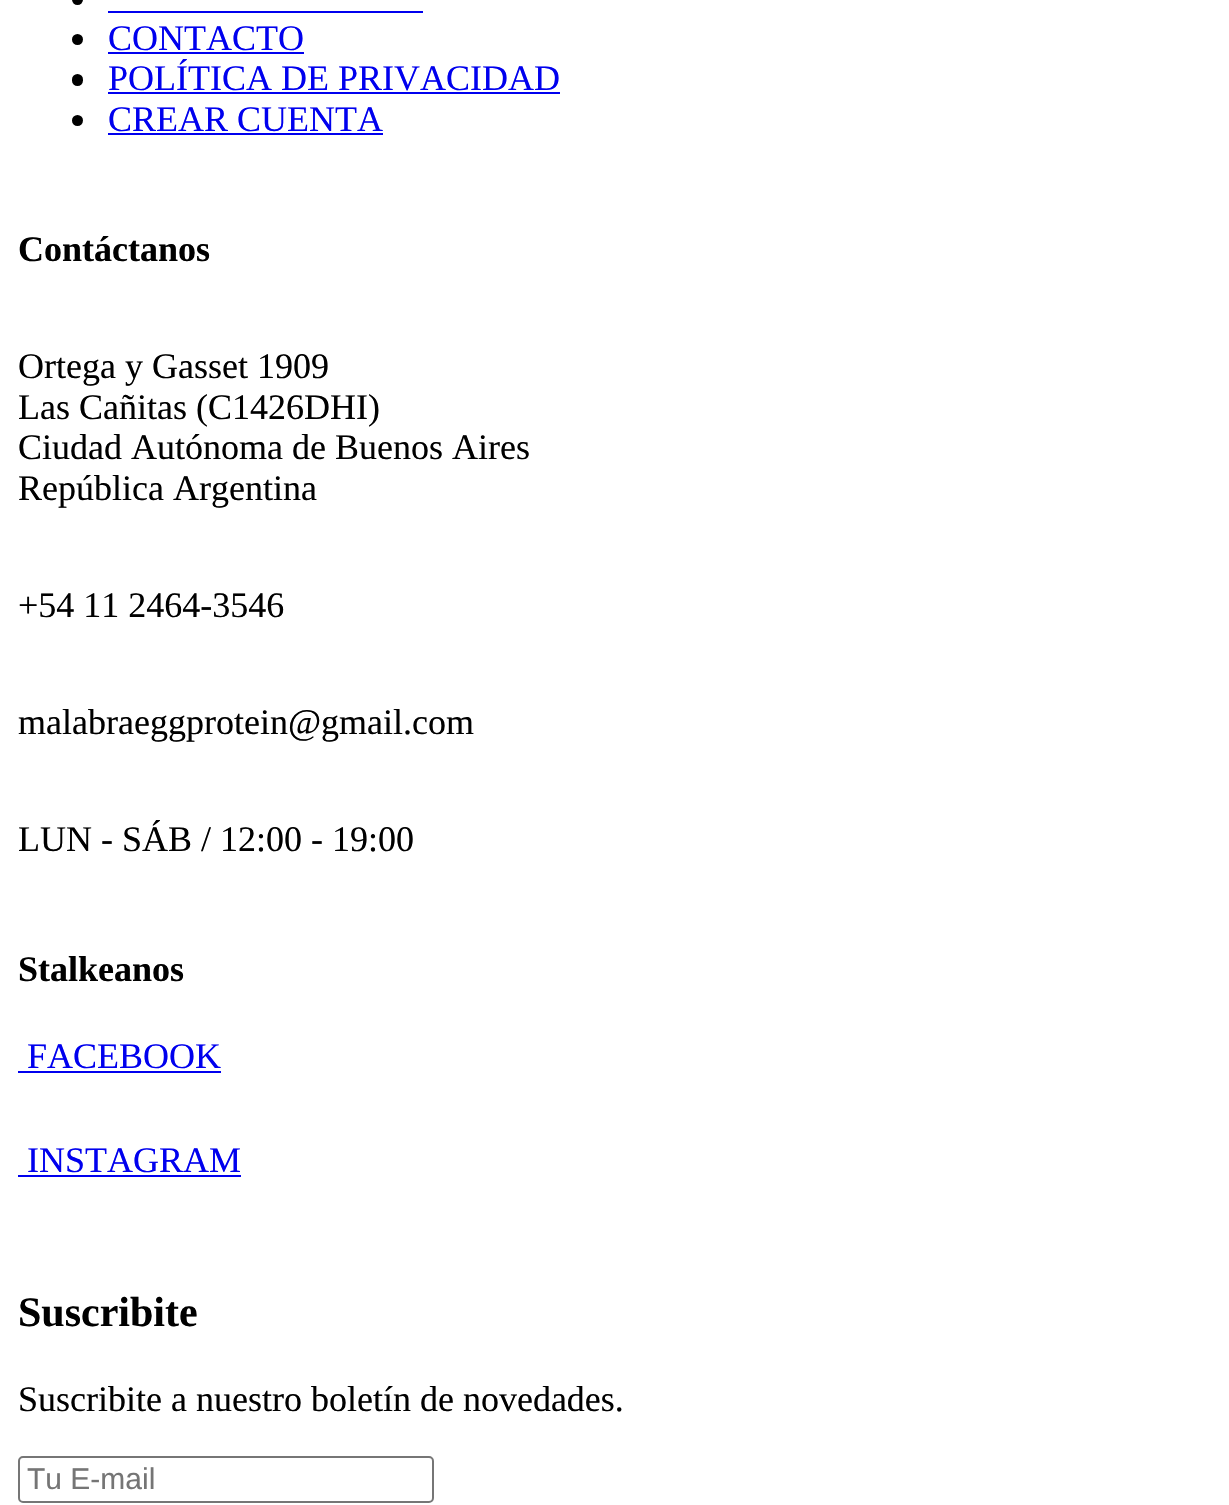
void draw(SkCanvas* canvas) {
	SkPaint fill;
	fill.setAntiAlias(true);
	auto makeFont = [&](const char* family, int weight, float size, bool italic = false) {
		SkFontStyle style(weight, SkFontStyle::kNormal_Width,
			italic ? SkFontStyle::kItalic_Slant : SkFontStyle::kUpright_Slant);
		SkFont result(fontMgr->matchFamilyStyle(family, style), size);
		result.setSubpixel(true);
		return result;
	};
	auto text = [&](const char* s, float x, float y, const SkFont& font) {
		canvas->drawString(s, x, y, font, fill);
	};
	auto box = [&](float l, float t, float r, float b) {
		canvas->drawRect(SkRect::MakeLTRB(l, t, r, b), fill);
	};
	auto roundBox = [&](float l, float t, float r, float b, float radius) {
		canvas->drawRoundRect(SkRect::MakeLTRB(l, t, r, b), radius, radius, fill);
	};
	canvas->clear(0xFFFFFFFF);
	fill.setColor(0xFF000000);
	canvas->drawCircle(77.5f, -0.5f, 5.5f, fill);
	fill.setColor(0xFF0000EE);
	box(108, 11, 423, 13);
	fill.setColor(0xFF000000);
	canvas->drawCircle(77.5f, 39.5f, 5.5f, fill);
	fill.setColor(0xFF0000EE);
	box(108, 52, 304, 54);
	fill.setColor(0xFF000000);
	roundBox(72, 74, 83, 86, 5.5f);
	fill.setColor(0xFF0000EE);
	box(108, 92, 560, 94);
	fill.setColor(0xFF000000);
	canvas->drawCircle(77.5f, 120.5f, 5.5f, fill);
	fill.setColor(0xFF0000EE);
	box(108, 133, 383, 135);
	box(18, 1071, 221, 1073);
	box(18, 1175, 241, 1177);
	fill.setStyle(SkPaint::kStroke_Style);
	fill.setStrokeWidth(2);
	fill.setColor(0xFF767676);
	canvas->drawRoundRect(SkRect::MakeLTRB(19, 1457, 433, 1502), 4, 4, fill);
	auto font1 = makeFont("Liberation Serif", 400, 36);
	fill.setStyle(SkPaint::kFill_Style);
	fill.setColor(0xFF0000EE);
	text("CONTACTO", 108, 50, font1);
	text("POLÍTICA DE PRIVACIDAD", 108, 90, font1);
	text("CREAR CUENTA", 108, 131, font1);
	auto font2 = makeFont("Liberation Serif", 700, 36);
	fill.setColor(0xFF000000);
	text("Contáctanos", 18, 261, font2);
	text("Ortega y Gasset 1909", 18, 378, font1);
	text("Las Cañitas (C1426DHI)", 18, 419, font1);
	text("Ciudad Autónoma de Buenos Aires", 18, 459, font1);
	text("República Argentina", 18, 500, font1);
	text("+54 11 2464-3546", 18, 617, font1);
	text("malabraeggprotein@gmail.com", 18, 734, font1);
	text("LUN - SÁB / 12:00 - 19:00", 18, 851, font1);
	text("Stalkeanos", 18, 981, font2);
	fill.setColor(0xFF0000EE);
	text("FACEBOOK", 27, 1068, font1);
	text("INSTAGRAM", 27, 1172, font1);
	auto font3 = makeFont("Liberation Serif", 700, 42);
	fill.setColor(0xFF000000);
	text("Suscribite", 18, 1326, font3);
	text("Suscribite a nuestro boletín de novedades.", 18, 1411, font1);
	auto font4 = makeFont("Liberation Sans", 400, 30);
	fill.setColor(0xFF757575);
	text("Tu E-mail", 27, 1489, font4);
}
